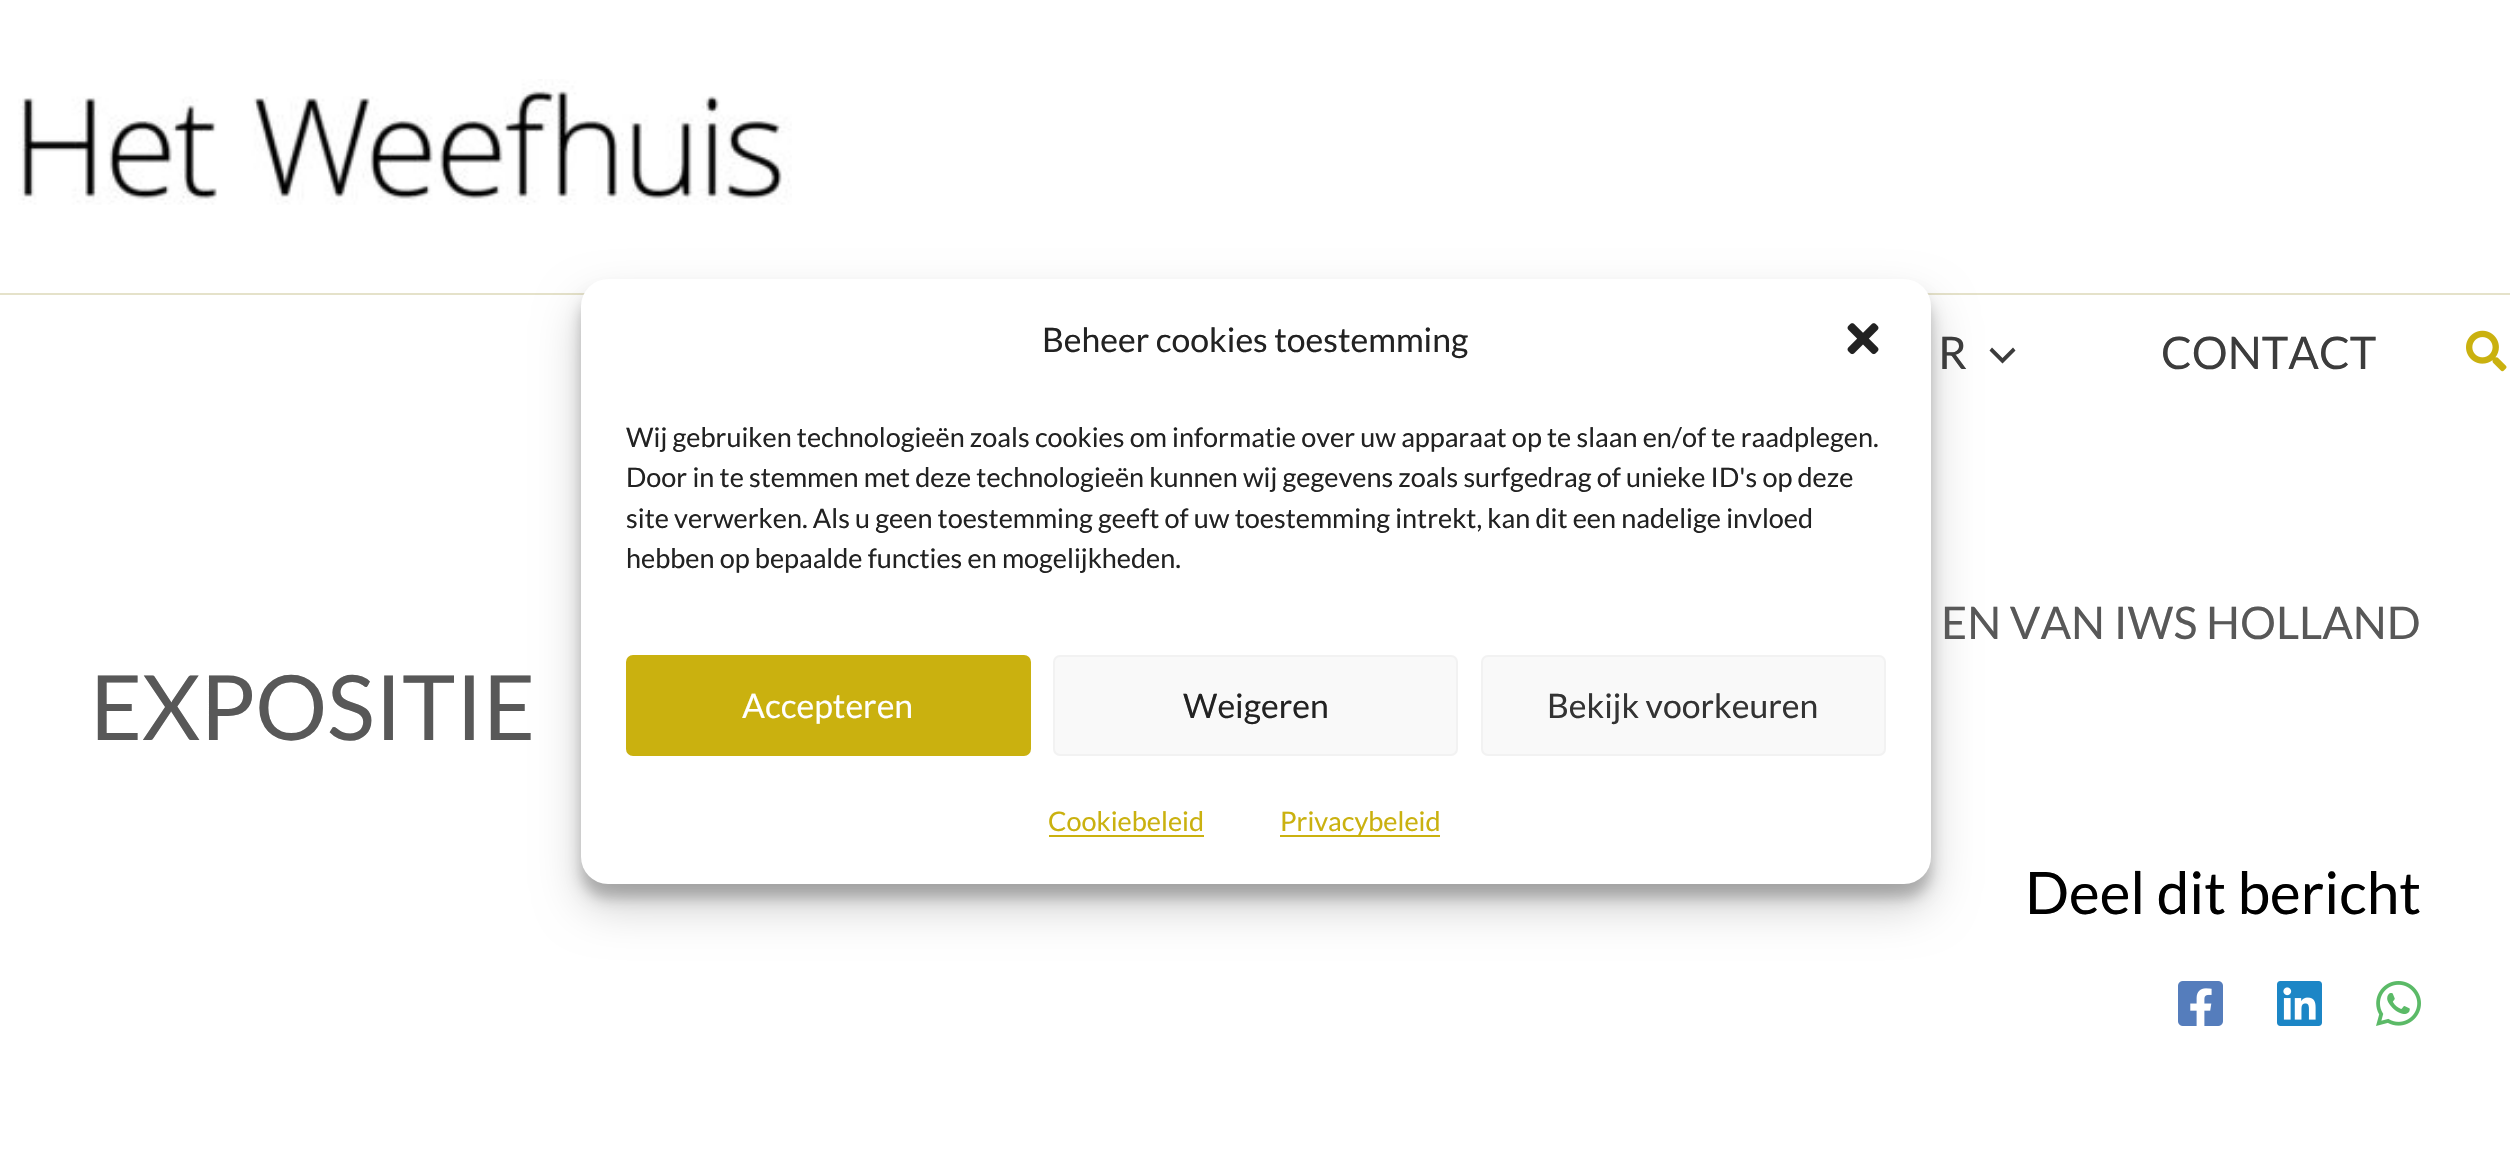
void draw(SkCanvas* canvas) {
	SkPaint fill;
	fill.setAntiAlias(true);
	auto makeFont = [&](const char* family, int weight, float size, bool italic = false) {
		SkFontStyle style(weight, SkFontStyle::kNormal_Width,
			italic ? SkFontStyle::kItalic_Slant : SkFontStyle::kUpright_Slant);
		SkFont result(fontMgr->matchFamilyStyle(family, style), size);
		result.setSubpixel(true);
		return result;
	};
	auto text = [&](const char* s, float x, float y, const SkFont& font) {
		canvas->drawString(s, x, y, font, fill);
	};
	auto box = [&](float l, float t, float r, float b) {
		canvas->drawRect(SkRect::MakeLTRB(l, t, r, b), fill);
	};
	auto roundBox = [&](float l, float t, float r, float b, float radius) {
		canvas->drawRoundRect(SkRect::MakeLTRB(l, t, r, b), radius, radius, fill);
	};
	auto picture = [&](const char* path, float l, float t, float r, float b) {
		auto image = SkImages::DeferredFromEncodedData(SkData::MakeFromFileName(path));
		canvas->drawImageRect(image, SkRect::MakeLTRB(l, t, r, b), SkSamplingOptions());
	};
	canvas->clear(0xFFFFFFFF);
	fill.setColor(0xFFE5E2CA);
	box(0, 293, 2510, 295);
	fill.setColor(0x3B000000);
	fill.setMaskFilter(SkMaskFilter::MakeBlur(kNormal_SkBlurStyle, 7));
	canvas->drawRoundRect(SkRect::MakeLTRB(581, 293, 1931, 898), 27, 27, fill);
	fill.setMaskFilter(nullptr);
	fill.setColor(0xFF3C3C3C);
	canvas->drawPath(SkPathBuilder().moveTo(1989.5f, 350.5f).lineTo(2002.5f, 363.5f).lineTo(2015.5f, 350.5f).lineTo(2013, 347.5f).lineTo(2002.5f, 358).lineTo(1992, 347.5f).close().detach(), fill);
	fill.setColor(0x30000000);
	fill.setMaskFilter(SkMaskFilter::MakeBlur(kNormal_SkBlurStyle, 22.5f));
	canvas->drawRoundRect(SkRect::MakeLTRB(581, 302, 1931, 907), 27, 27, fill);
	fill.setMaskFilter(nullptr);
	fill.setColor(0xFFFFFFFF);
	roundBox(581, 279, 1931, 884, 27);
	picture("image0.png", 1847, 323, 1879, 355);
	fill.setColor(0xFFCAB10F);
	canvas->drawRoundRect(SkRect::MakeLTRB(627, 656, 1030, 755), 6, 6, fill);
	fill.setStyle(SkPaint::kStroke_Style);
	fill.setStrokeWidth(2);
	canvas->drawRoundRect(SkRect::MakeLTRB(627, 656, 1030, 755), 6, 6, fill);
	fill.setStyle(SkPaint::kFill_Style);
	fill.setColor(0xFFF9F9F9);
	canvas->drawRoundRect(SkRect::MakeLTRB(1054, 656, 1457, 755), 6, 6, fill);
	fill.setStyle(SkPaint::kStroke_Style);
	fill.setColor(0xFFF2F2F2);
	canvas->drawRoundRect(SkRect::MakeLTRB(1054, 656, 1457, 755), 6, 6, fill);
	fill.setStyle(SkPaint::kFill_Style);
	fill.setColor(0xFFF9F9F9);
	canvas->drawRoundRect(SkRect::MakeLTRB(1482, 656, 1885, 755), 6, 6, fill);
	fill.setStyle(SkPaint::kStroke_Style);
	fill.setColor(0xFFF2F2F2);
	canvas->drawRoundRect(SkRect::MakeLTRB(1482, 656, 1885, 755), 6, 6, fill);
	fill.setStyle(SkPaint::kFill_Style);
	fill.setColor(0xFFCAB10F);
	box(1049, 835, 1204, 837);
	box(1280, 835, 1440, 837);
	picture("image1.png", 18, 79, 792, 205);
	picture("image2.png", 2466, 330, 2507, 372);
	picture("image3.png", 2178, 981, 2223, 1026);
	picture("image4.png", 2277, 981, 2322, 1026);
	picture("image5.png", 2376, 981, 2421, 1026);
	auto font1 = makeFont("Lato", 400, 33.75f);
	fill.setColor(0xFF222222);
	text("Beheer cookies toestemming", 1042, 352, font1);
	auto font2 = makeFont("Lato", 400, 27);
	text("Wij gebruiken technologieën zoals cookies om informatie over uw apparaat op te slaan en/of te raadplegen.", 626, 447, font2);
	text("Door in te stemmen met deze technologieën kunnen wij gegevens zoals surfgedrag of unieke ID's op deze", 626, 487, font2);
	text("site verwerken. Als u geen toestemming geeft of uw toestemming intrekt, kan dit een nadelige invloed", 626, 528, font2);
	text("hebben op bepaalde functies en mogelijkheden.", 626, 568, font2);
	fill.setColor(0xFFFFFFFF);
	text("Accepteren", 742, 718, font1);
	fill.setColor(0xFF222222);
	text("Weigeren", 1183, 718, font1);
	fill.setColor(0xFF333333);
	text("Bekijk voorkeuren", 1547, 718, font1);
	fill.setColor(0xFFCAB10F);
	text("Cookiebeleid", 1048, 831, font2);
	text("Privacybeleid", 1280, 831, font2);
	auto font3 = makeFont("Lato", 400, 45);
	fill.setColor(0xFF3C3C3C);
	text("R", 1938, 369, font3);
	text("CONTACT", 2161, 369, font3);
	fill.setColor(0xFF585858);
	text("EN VAN IWS HOLLAND", 1941, 639, font3);
	auto font4 = makeFont("Lato", 400, 90);
	text("EXPOSITIE", 90, 740, font4);
	auto font5 = makeFont("Lato", 400, 58.5f);
	fill.setColor(0xFF000000);
	text("Deel dit bericht", 2025, 914, font5);
}
